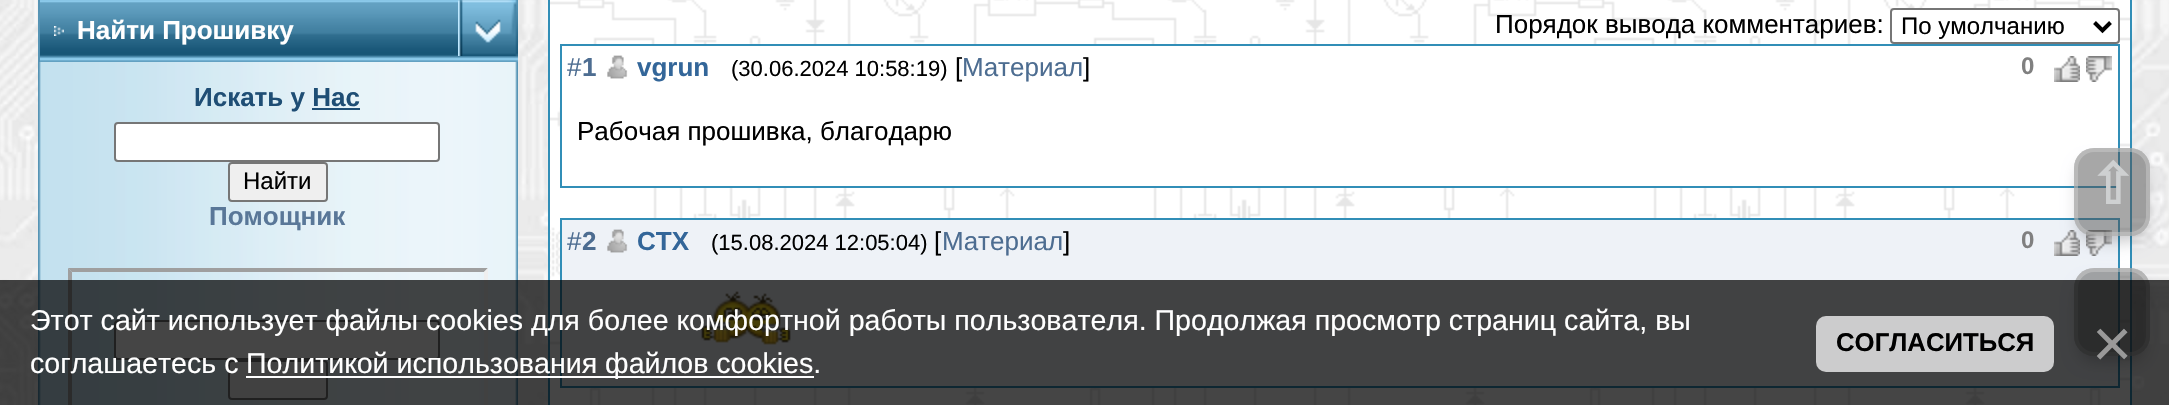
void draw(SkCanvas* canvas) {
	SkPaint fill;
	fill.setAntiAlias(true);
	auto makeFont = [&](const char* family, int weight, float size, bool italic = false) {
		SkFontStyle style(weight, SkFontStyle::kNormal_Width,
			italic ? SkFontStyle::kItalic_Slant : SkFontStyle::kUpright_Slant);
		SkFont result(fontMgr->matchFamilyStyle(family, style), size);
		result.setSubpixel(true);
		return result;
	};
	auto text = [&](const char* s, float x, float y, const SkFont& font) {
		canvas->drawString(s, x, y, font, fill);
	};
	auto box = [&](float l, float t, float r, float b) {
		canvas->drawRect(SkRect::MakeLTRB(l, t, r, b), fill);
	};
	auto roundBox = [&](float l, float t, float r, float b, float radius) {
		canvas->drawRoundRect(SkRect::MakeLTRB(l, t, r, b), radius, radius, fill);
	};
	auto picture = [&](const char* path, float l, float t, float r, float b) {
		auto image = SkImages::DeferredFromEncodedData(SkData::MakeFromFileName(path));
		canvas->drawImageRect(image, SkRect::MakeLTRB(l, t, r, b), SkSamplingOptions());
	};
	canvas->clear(0xFFFFFFFF);
	picture("image0.png", 0, 0, 2169, 405);
	picture("image1.png", 40, 0, 458, 62);
	fill.setColor(0xFF5694B5);
	box(38, 0, 40, 62);
	picture("image2.png", 54, 26, 64, 36);
	picture("image3.png", 458, 56, 518, 62);
	picture("image4.png", 458, 0, 518, 56);
	picture("image5.png", 38, 62, 518, 405);
	fill.setColor(0xFF1F4E75);
	box(312, 108, 360, 110);
	fill.setColor(0xFFFFFFFF);
	canvas->drawRoundRect(SkRect::MakeLTRB(115, 123, 439, 161), 3, 3, fill);
	fill.setStyle(SkPaint::kStroke_Style);
	fill.setStrokeWidth(2);
	fill.setColor(0xFF767676);
	canvas->drawRoundRect(SkRect::MakeLTRB(115, 123, 439, 161), 3, 3, fill);
	fill.setStyle(SkPaint::kFill_Style);
	fill.setColor(0xFFEFEFEF);
	canvas->drawRoundRect(SkRect::MakeLTRB(229, 163, 327, 201), 3, 3, fill);
	fill.setStyle(SkPaint::kStroke_Style);
	fill.setColor(0xFF767676);
	canvas->drawRoundRect(SkRect::MakeLTRB(229, 163, 327, 201), 3, 3, fill);
	fill.setStyle(SkPaint::kFill_Style);
	fill.setColor(0xFF9F9F9F);
	canvas->drawPath(SkPathBuilder().moveTo(68, 268).lineTo(488, 268).lineTo(484, 272).lineTo(72, 272).close().detach(), fill);
	fill.setColor(0xFFEFEFEF);
	canvas->drawPath(SkPathBuilder().moveTo(488, 268).lineTo(488, 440).lineTo(484, 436).lineTo(484, 272).close().detach(), fill);
	fill.setColor(0xFF9F9F9F);
	canvas->drawPath(SkPathBuilder().moveTo(68, 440).lineTo(68, 268).lineTo(72, 272).lineTo(72, 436).close().detach(), fill);
	fill.setColor(0xFFFFFFFF);
	canvas->drawRoundRect(SkRect::MakeLTRB(115, 321, 439, 359), 3, 3, fill);
	fill.setStyle(SkPaint::kStroke_Style);
	fill.setColor(0xFF767676);
	canvas->drawRoundRect(SkRect::MakeLTRB(115, 321, 439, 359), 3, 3, fill);
	fill.setStyle(SkPaint::kFill_Style);
	fill.setColor(0xFFEFEFEF);
	canvas->drawRoundRect(SkRect::MakeLTRB(229, 361, 327, 399), 3, 3, fill);
	fill.setStyle(SkPaint::kStroke_Style);
	fill.setColor(0xFF767676);
	canvas->drawRoundRect(SkRect::MakeLTRB(229, 361, 327, 399), 3, 3, fill);
	picture("image6.png", 550, 0, 2130, 405);
	fill.setColor(0xFF318EB7);
	canvas->drawRect(SkRect::MakeLTRB(549, -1, 2131, 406), fill);
	fill.setStyle(SkPaint::kFill_Style);
	fill.setColor(0xFFFFFFFF);
	canvas->drawRoundRect(SkRect::MakeLTRB(1891, 9, 2119, 43), 3, 3, fill);
	fill.setStyle(SkPaint::kStroke_Style);
	fill.setColor(0xFF767676);
	canvas->drawRoundRect(SkRect::MakeLTRB(1891, 9, 2119, 43), 3, 3, fill);
	fill.setStrokeWidth(4);
	fill.setColor(0xFF000000);
	canvas->drawPath(SkPathBuilder().moveTo(2094.5f, 22.5f).lineTo(2102.5f, 30.5f).lineTo(2110.5f, 22.5f).detach(), fill);
	fill.setStyle(SkPaint::kFill_Style);
	fill.setColor(0xFFFFFFFF);
	canvas->drawRect(SkRect::MakeLTRB(561, 45, 2119, 187), fill);
	fill.setStyle(SkPaint::kStroke_Style);
	fill.setStrokeWidth(2);
	fill.setColor(0xFF318EB7);
	canvas->drawRect(SkRect::MakeLTRB(561, 45, 2119, 187), fill);
	picture("image7.png", 607, 55, 628, 79);
	picture("image8.png", 2054, 56, 2080, 82);
	picture("image9.png", 2086, 56, 2112, 82);
	fill.setStyle(SkPaint::kFill_Style);
	fill.setColor(0xFFEEF2F7);
	canvas->drawRect(SkRect::MakeLTRB(561, 219, 2119, 387), fill);
	fill.setStyle(SkPaint::kStroke_Style);
	fill.setColor(0xFF318EB7);
	canvas->drawRect(SkRect::MakeLTRB(561, 219, 2119, 387), fill);
	picture("image10.png", 607, 229, 628, 253);
	picture("image11.png", 2054, 230, 2080, 256);
	picture("image12.png", 2086, 230, 2112, 256);
	picture("image13.png", 701, 291, 791, 345);
	canvas->save();
	canvas->clipPath(SkPathBuilder(SkPathFillType::kEvenOdd).moveTo(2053, 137).lineTo(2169, 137).lineTo(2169, 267).lineTo(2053, 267).close().moveTo(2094, 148).lineTo(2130, 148).cubicTo(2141, 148, 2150, 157, 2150, 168).lineTo(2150, 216).cubicTo(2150, 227, 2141, 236, 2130, 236).lineTo(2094, 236).cubicTo(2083, 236, 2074, 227, 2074, 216).lineTo(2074, 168).cubicTo(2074, 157, 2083, 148, 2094, 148).close().detach(), true);
	fill.setStyle(SkPaint::kFill_Style);
	fill.setColor(0x40000006);
	fill.setMaskFilter(SkMaskFilter::MakeBlur(kNormal_SkBlurStyle, 8.5f));
	canvas->drawRoundRect(SkRect::MakeLTRB(2080, 164, 2144, 240), 14, 14, fill);
	fill.setMaskFilter(nullptr);
	canvas->restore();
	fill.setColor(0x804F4F4F);
	roundBox(2074, 148, 2150, 236, 20);
	fill.setStyle(SkPaint::kStroke_Style);
	fill.setStrokeWidth(4);
	fill.setColor(0x80CCCCCC);
	canvas->drawRoundRect(SkRect::MakeLTRB(2076, 150, 2148, 234), 18, 18, fill);
	canvas->save();
	canvas->clipPath(SkPathBuilder(SkPathFillType::kEvenOdd).moveTo(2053, 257).lineTo(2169, 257).lineTo(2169, 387).lineTo(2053, 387).close().moveTo(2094, 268).lineTo(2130, 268).cubicTo(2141, 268, 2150, 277, 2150, 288).lineTo(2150, 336).cubicTo(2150, 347, 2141, 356, 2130, 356).lineTo(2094, 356).cubicTo(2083, 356, 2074, 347, 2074, 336).lineTo(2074, 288).cubicTo(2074, 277, 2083, 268, 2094, 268).close().detach(), true);
	fill.setStyle(SkPaint::kFill_Style);
	fill.setColor(0x40000006);
	fill.setMaskFilter(SkMaskFilter::MakeBlur(kNormal_SkBlurStyle, 8.5f));
	canvas->drawRoundRect(SkRect::MakeLTRB(2080, 284, 2144, 360), 14, 14, fill);
	fill.setMaskFilter(nullptr);
	canvas->restore();
	fill.setColor(0x804F4F4F);
	roundBox(2074, 268, 2150, 356, 20);
	fill.setStyle(SkPaint::kStroke_Style);
	fill.setColor(0x80CCCCCC);
	canvas->drawRoundRect(SkRect::MakeLTRB(2076, 270, 2148, 354), 18, 18, fill);
	fill.setStyle(SkPaint::kFill_Style);
	fill.setColor(0xBA000000);
	box(0, 280, 2169, 405);
	fill.setColor(0xFFFFFFFF);
	box(246, 376, 814, 378);
	fill.setColor(0xFFCCCCCD);
	roundBox(1816, 316, 2054, 372, 10);
	auto font1 = makeFont("Liberation Sans", 700, 26);
	fill.setColor(0xFFFFFFFF);
	text("Найти Прошивку", 77, 39, font1);
	fill.setColor(0xFF1F4E75);
	text("Искать у Нас", 194, 106, font1);
	auto font2 = makeFont("Liberation Sans", 400, 24);
	fill.setColor(0xFF000000);
	text("Найти", 243, 189, font2);
	fill.setColor(0xFF597798);
	text("Помощник", 209, 225, font1);
	auto font3 = makeFont("Liberation Sans", 400, 26);
	fill.setColor(0xFF000000);
	text("Порядок вывода комментариев:", 1495, 33, font3);
	text("По умолчанию", 1901, 34, font2);
	fill.setColor(0xFF4D6D91);
	text("#", 567, 76, font3);
	text("1", 582, 76, font1);
	fill.setColor(0xFF336699);
	text("vgrun", 637, 76, font1);
	auto font4 = makeFont("Liberation Sans", 400, 22);
	fill.setColor(0xFF000000);
	text("(30.06.2024 10:58:19)", 731, 76, font4);
	text("[", 955, 76, font3);
	fill.setColor(0xFF4D6D91);
	text("Материал", 962, 76, font3);
	fill.setColor(0xFF000000);
	text("]", 1083, 76, font3);
	auto font5 = makeFont("Liberation Sans", 700, 24);
	fill.setColor(0xFF808080);
	text("0", 2021, 74, font5);
	fill.setColor(0xFF000000);
	text("Рабочая прошивка, благодарю", 577, 140, font3);
	fill.setColor(0xFF4D6D91);
	text("#", 567, 250, font3);
	text("2", 582, 250, font1);
	fill.setColor(0xFF336699);
	text("CTX", 637, 250, font1);
	fill.setColor(0xFF000000);
	text("(15.08.2024 12:05:04)", 711, 250, font4);
	text("[", 934, 250, font3);
	fill.setColor(0xFF4D6D91);
	text("Материал", 942, 250, font3);
	fill.setColor(0xFF000000);
	text("]", 1063, 250, font3);
	fill.setColor(0xFF808080);
	text("0", 2021, 248, font5);
	auto font6 = makeFont("DejaVu Sans", 700, 56);
	fill.setColor(0xFFCED0D1);
	text("⇧", 2089, 204, font6);
	auto font7 = makeFont("Liberation Sans", 400, 28.6f);
	fill.setColor(0xFFFFFFFF);
	text("Этот сайт использует файлы cookies для более комфортной работы пользователя. Продолжая просмотр страниц сайта, вы", 30, 330, font7);
	text("соглашаетесь с", 30, 373, font7);
	text("Политикой использования файлов cookies.", 246, 373, font7);
	auto font8 = makeFont("Liberation Sans", 700, 25.75f);
	fill.setColor(0xFF000000);
	text("СОГЛАСИТЬСЯ", 1836, 351, font8);
	auto font9 = makeFont("Liberation Sans", 400, 69);
	fill.setColor(0xFF999999);
	text("×", 2092, 367, font9);
}
